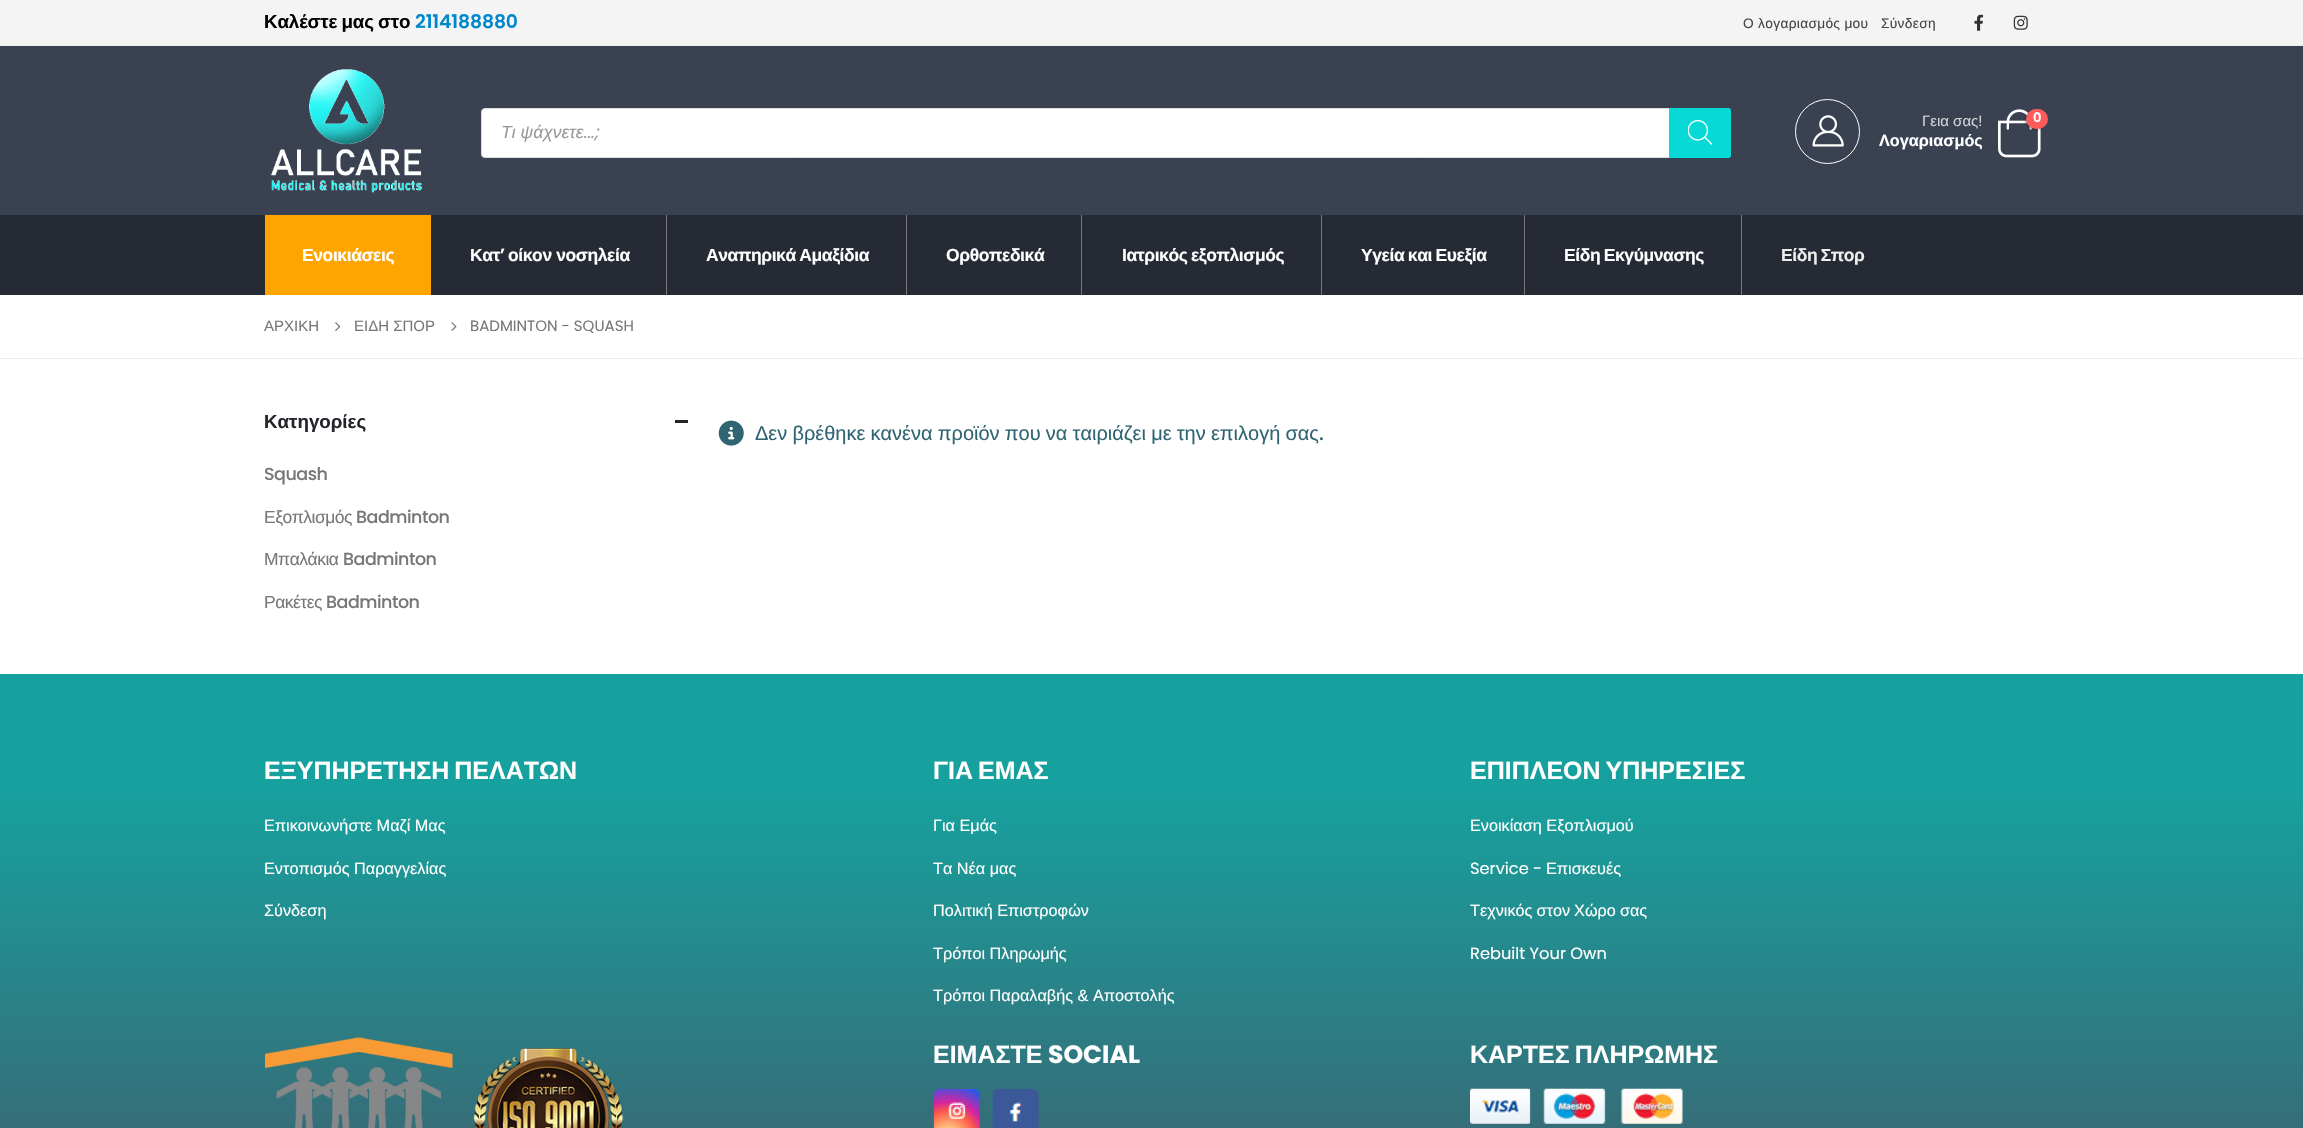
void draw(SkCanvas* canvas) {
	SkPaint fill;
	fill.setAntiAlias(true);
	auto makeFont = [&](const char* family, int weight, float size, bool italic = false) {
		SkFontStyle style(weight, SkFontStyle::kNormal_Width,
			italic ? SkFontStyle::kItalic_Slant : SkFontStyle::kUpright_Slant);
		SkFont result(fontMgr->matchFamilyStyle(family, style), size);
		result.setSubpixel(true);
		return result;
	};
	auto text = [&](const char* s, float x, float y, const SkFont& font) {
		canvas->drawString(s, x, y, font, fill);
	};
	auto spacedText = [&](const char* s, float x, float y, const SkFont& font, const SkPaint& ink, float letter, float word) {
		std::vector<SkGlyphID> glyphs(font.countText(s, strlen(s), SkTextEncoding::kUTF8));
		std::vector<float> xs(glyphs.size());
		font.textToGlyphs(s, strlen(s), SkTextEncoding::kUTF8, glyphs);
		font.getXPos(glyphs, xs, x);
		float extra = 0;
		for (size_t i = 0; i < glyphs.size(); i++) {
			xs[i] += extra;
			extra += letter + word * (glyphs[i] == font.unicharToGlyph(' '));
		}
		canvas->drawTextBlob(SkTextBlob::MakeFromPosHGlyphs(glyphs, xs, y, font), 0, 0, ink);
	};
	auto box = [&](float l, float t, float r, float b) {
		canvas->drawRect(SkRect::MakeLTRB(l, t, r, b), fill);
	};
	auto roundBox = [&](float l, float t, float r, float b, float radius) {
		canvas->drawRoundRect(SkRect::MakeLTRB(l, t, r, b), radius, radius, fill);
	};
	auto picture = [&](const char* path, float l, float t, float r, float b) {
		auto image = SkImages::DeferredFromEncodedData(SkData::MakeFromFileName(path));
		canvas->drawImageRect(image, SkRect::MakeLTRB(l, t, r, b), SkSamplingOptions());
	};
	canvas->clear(0xFFFFFFFF);
	fill.setColor(0xFFF4F4F4);
	box(0, 0, 2303, 45);
	fill.setColor(0xFFEDEDED);
	box(0, 45, 2303, 46);
	picture("image0.png", 1974, 14, 1984, 31);
	picture("image1.png", 2013, 15, 2028, 30);
	fill.setColor(0xFF3A4252);
	box(0, 46, 2303, 215);
	picture("image2.png", 270, 69, 422, 193);
	fill.setColor(0xFFFFFFFF);
	canvas->drawRoundRect(SkRect::MakeLTRB(481.5f, 108.5f, 1730.5f, 157.5f), 3.5f, 3.5f, fill);
	fill.setStyle(SkPaint::kStroke_Style);
	fill.setStrokeWidth(1);
	fill.setColor(0xFFDDDDDD);
	canvas->drawRoundRect(SkRect::MakeLTRB(481.5f, 108.5f, 1730.5f, 157.5f), 3.5f, 3.5f, fill);
	fill.setStyle(SkPaint::kFill_Style);
	fill.setColor(0xFF07D9D6);
	canvas->drawPath(SkPathBuilder().moveTo(1669, 108).lineTo(1728.5f, 108).cubicTo(1730, 108, 1731, 109, 1731, 110.5f).lineTo(1731, 155.5f).cubicTo(1731, 157, 1730, 158, 1728.5f, 158).lineTo(1669, 158).close().detach(), fill);
	picture("image3.png", 1688, 120, 1713, 145);
	fill.setStyle(SkPaint::kStroke_Style);
	fill.setColor(0xFFFFFFFF);
	canvas->drawCircle(1827.5f, 131.5f, 32, fill);
	picture("image4.png", 1812, 115, 1844, 147);
	picture("image5.png", 1998, 109, 2041, 158);
	fill.setStyle(SkPaint::kFill_Style);
	fill.setColor(0x4D000000);
	fill.setMaskFilter(SkMaskFilter::MakeBlur(kNormal_SkBlurStyle, 1));
	canvas->drawRoundRect(SkRect::MakeLTRB(2025, 110, 2046, 130), 10, 10, fill);
	fill.setMaskFilter(nullptr);
	fill.setColor(0xFFFF5B5B);
	roundBox(2026, 109, 2048, 129, 10);
	fill.setColor(0xFF252A34);
	box(0, 215, 2303, 295);
	fill.setColor(0xFFFFA500);
	box(265, 215, 431, 295);
	fill.setColor(0xFF777777);
	box(666, 215, 667, 295);
	box(906, 215, 907, 295);
	box(1081, 215, 1082, 295);
	box(1321, 215, 1322, 295);
	box(1524, 215, 1525, 295);
	box(1741, 215, 1742, 295);
	fill.setColor(0xFFEEEEEE);
	box(0, 358, 2303, 359);
	picture("image6.png", 335, 322, 341, 331);
	picture("image7.png", 451, 322, 457, 331);
	fill.setColor(0xFF222529);
	box(675, 420, 688, 423);
	picture("image8.png", 718, 420, 744, 446);
	{
		const SkColor colors[] = {0xFF33363C, 0xFF475063, 0xFF17A19E};
		const float stops[] = {0, 0.45f, 0.9f};
		const SkPoint ends[] = {{1152, 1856}, {1152, 674}};
		fill.setShader(SkGradientShader::MakeLinear(ends, colors, stops, 3, SkTileMode::kClamp));
		fill.setAlpha(255);
	}
	box(0, 674, 2303, 1128);
	picture("image9.png", 265, 1037, 453, 1128);
	picture("image10.png", 473, 1048, 624, 1128);
	picture("image11.png", 933, 1088, 980, 1128);
	picture("image12.png", 992, 1089, 1039, 1128);
	picture("image13.png", 1470, 1088, 1683, 1124);
	auto font1 = makeFont("Liberation Sans", 700, 18.75f);
	fill.setShader(nullptr);
	fill.setColor(0xFF000000);
	spacedText("Καλέστε μας στο", 264, 28, font1, fill, -0.1f, -1);
	auto font2 = makeFont("Poppins", 600, 18.75f);
	fill.setColor(0xFF0088CC);
	spacedText("2114188880", 415, 28, font2, fill, -0.1f, 0);
	auto font3 = makeFont("Liberation Sans", 400, 13.75f);
	fill.setColor(0xFF444444);
	spacedText("Ο λογαριασμός μου", 1743, 28, font3, fill, 0.3f, 0);
	spacedText("Σύνδεση", 1881, 28, font3, fill, 0.3f, 0);
	auto font4 = makeFont("Liberation Sans", 400, 17.5f, true);
	fill.setColor(0xFF999999);
	text("Τι ψάχνετε", 501, 138, font4);
	auto font5 = makeFont("Poppins", 400, 17.5f, true);
	text("...;", 583, 138, font5);
	auto font6 = makeFont("Liberation Sans", 400, 15);
	fill.setColor(0xFFD2D2D2);
	text("Γεια σας!", 1922, 126, font6);
	auto font7 = makeFont("Liberation Sans", 700, 16.25f);
	fill.setColor(0xFFFFFFFF);
	text("Λογαριασμός", 1879, 146, font7);
	auto font8 = makeFont("Poppins", 600, 13);
	text("0", 2033, 122, font8);
	auto font9 = makeFont("Liberation Sans", 700, 17.5f);
	spacedText("Ενοικιάσεις", 302, 261, font9, fill, -0.4f, 0);
	spacedText("Κατ", 470, 261, font9, fill, -0.4f, 0);
	auto font10 = makeFont("Poppins", 600, 17.5f);
	spacedText("’", 500, 261, font10, fill, -0.4f, 0);
	spacedText("οίκον νοσηλεία", 508, 261, font9, fill, -0.4f, 0);
	spacedText("Αναπηρικά Αμαξίδια", 706, 261, font9, fill, -0.4f, -1);
	spacedText("Ορθοπεδικά", 946, 261, font9, fill, -0.4f, 0);
	spacedText("Ιατρικός εξοπλισμός", 1122, 261, font9, fill, -0.4f, -1);
	spacedText("Υγεία και Ευεξία", 1361, 261, font9, fill, -0.4f, -1);
	spacedText("Είδη Εκγύμνασης", 1564, 261, font9, fill, -0.4f, -1);
	fill.setColor(0xFFEDEDED);
	spacedText("Είδη Σπορ", 1781, 261, font9, fill, -0.4f, -1);
	fill.setColor(0xFF777777);
	text("ΑΡΧΙΚΗ", 264, 331, font6);
	text("ΕΙΔΗ ΣΠΟΡ", 354, 331, font6);
	auto font11 = makeFont("Poppins", 400, 15);
	text("BADMINTON - SQUASH", 470, 331, font11);
	fill.setColor(0xFF222529);
	text("Κατηγορίες", 264, 428, font1);
	auto font12 = makeFont("Poppins", 500, 17.5f);
	fill.setColor(0xFF777777);
	spacedText("Squash", 264, 480, font12, fill, -0.5f, 0);
	auto font13 = makeFont("Liberation Sans", 400, 17.5f);
	spacedText("Εξοπλισμός", 264, 523, font13, fill, -0.5f, 0);
	spacedText("Badminton", 356, 523, font12, fill, -0.5f, 0);
	spacedText("Μπαλάκια", 264, 565, font13, fill, -0.5f, 0);
	spacedText("Badminton", 343, 565, font12, fill, -0.5f, 0);
	spacedText("Ρακέτες", 264, 608, font13, fill, -0.5f, 0);
	spacedText("Badminton", 326, 608, font12, fill, -0.5f, 0);
	auto font14 = makeFont("Liberation Sans", 400, 20);
	fill.setColor(0xFF2F6473);
	spacedText("Δεν βρέθηκε κανένα προϊόν που να ταιριάζει με την επιλογή σας", 755, 440, font14, fill, 0, -0.4f);
	auto font15 = makeFont("Poppins", 500, 20);
	text(".", 1319, 440, font15);
	auto font16 = makeFont("Liberation Sans", 700, 25);
	fill.setColor(0xFFFFFFFF);
	spacedText("ΕΞΥΠΗΡΕΤΗΣΗ ΠΕΛΑΤΩΝ", 264, 779, font16, fill, 0, -2);
	auto font17 = makeFont("Liberation Sans", 400, 16.25f);
	text("Επικοινωνήστε Μαζί Μας", 264, 831, font17);
	text("Εντοπισμός Παραγγελίας", 264, 874, font17);
	text("Σύνδεση", 264, 916, font17);
	spacedText("ΓΙΑ ΕΜΑΣ", 933, 779, font16, fill, 0, -2);
	text("Για Εμάς", 933, 831, font17);
	text("Τα Νέα μας", 933, 874, font17);
	text("Πολιτική Επιστροφών", 933, 916, font17);
	text("Τρόποι Πληρωμής", 933, 959, font17);
	text("Τρόποι Παραλαβής & Αποστολής", 933, 1001, font17);
	spacedText("ΕΠΙΠΛΕΟΝ ΥΠΗΡΕΣΙΕΣ", 1470, 779, font16, fill, 0, -2);
	text("Ενοικίαση Εξοπλισμού", 1470, 831, font17);
	auto font18 = makeFont("Poppins", 400, 16.25f);
	text("Service -", 1470, 874, font18);
	text("Επισκευές", 1546, 874, font17);
	spacedText("Tεχνικός στον Χώρο σας", 1470, 916, font17, fill, 0, -0.5f);
	text("Rebuilt Your Own", 1470, 959, font18);
	text("ΕΙΜΑΣΤΕ", 933, 1063, font16);
	auto font19 = makeFont("Poppins", 700, 25);
	text("SOCIAL", 1048, 1063, font19);
	spacedText("ΚΑΡΤΕΣ ΠΛΗΡΩΜΗΣ", 1470, 1063, font16, fill, 0, -2);
}
